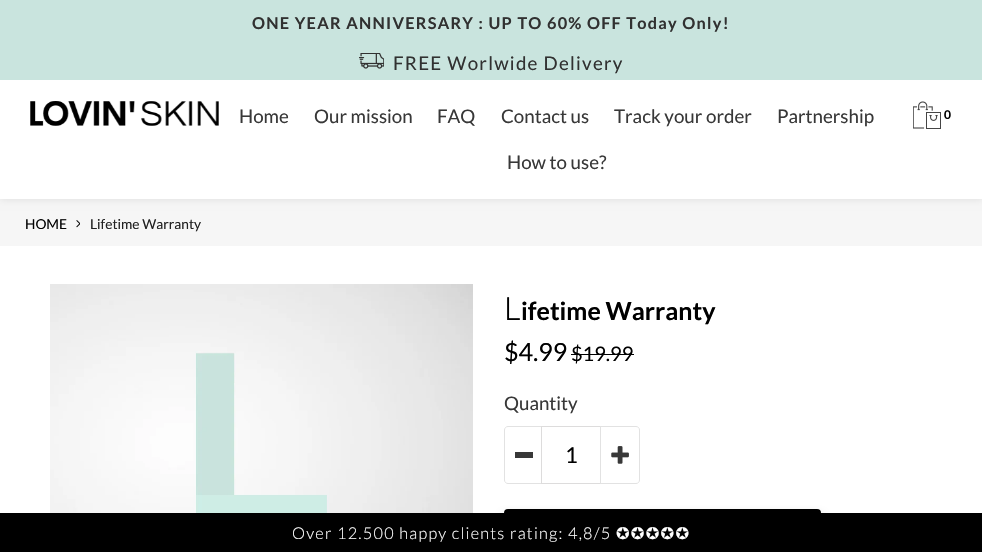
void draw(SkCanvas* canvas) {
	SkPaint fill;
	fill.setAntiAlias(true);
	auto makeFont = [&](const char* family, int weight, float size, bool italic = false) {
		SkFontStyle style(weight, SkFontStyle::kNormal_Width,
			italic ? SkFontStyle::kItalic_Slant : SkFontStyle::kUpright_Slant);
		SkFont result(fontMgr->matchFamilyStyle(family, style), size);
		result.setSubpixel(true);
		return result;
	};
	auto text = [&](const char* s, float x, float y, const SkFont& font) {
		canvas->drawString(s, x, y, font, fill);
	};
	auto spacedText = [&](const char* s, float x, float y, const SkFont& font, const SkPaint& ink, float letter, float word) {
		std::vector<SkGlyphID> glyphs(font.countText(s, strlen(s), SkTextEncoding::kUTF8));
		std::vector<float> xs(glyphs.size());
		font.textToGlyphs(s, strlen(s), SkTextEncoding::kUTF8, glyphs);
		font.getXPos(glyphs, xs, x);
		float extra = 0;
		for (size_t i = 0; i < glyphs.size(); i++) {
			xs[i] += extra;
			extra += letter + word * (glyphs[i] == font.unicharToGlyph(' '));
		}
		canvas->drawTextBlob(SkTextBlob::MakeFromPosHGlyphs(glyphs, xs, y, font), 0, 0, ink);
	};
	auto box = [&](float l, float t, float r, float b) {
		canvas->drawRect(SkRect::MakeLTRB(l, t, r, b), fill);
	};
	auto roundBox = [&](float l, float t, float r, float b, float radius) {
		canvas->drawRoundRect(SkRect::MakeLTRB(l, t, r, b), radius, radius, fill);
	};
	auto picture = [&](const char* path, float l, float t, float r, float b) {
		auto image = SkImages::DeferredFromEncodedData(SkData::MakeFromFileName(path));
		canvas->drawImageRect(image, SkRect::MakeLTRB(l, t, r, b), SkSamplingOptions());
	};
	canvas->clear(0xFFFFFFFF);
	fill.setColor(0xFFF6F6F6);
	box(0, 199, 982, 246);
	fill.setColor(0x1A000000);
	fill.setMaskFilter(SkMaskFilter::MakeBlur(kNormal_SkBlurStyle, 4));
	canvas->drawRect(SkRect::MakeLTRB(0, 0, 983, 199), fill);
	fill.setMaskFilter(nullptr);
	fill.setColor(0xFFFFFFFF);
	box(0, 80, 982, 199);
	fill.setColor(0xFFC9E4DE);
	box(0, 0, 982, 80);
	picture("image0.png", 359, 53, 384, 69);
	picture("image1.png", 30, 101, 219, 126);
	picture("image2.png", 913, 101, 941, 129);
	picture("image3.png", 76, 220, 80, 228);
	picture("image4.png", 50, 284, 473, 513);
	fill.setColor(0xFF000000);
	box(571, 354, 634, 355);
	fill.setStyle(SkPaint::kStroke_Style);
	fill.setStrokeWidth(1);
	fill.setColor(0xFFE2E2E2);
	canvas->drawPath(SkPathBuilder().moveTo(508, 426.5f).lineTo(543.5f, 426.5f).lineTo(543.5f, 483.5f).lineTo(508, 483.5f).cubicTo(506, 483.5f, 504.5f, 482, 504.5f, 480).lineTo(504.5f, 430).cubicTo(504.5f, 428, 506, 426.5f, 508, 426.5f).close().detach(), fill);
	fill.setStyle(SkPaint::kFill_Style);
	fill.setColor(0xFF383838);
	box(515, 452, 533, 458);
	fill.setColor(0xFFFFFFFF);
	box(543, 427, 544, 483);
	fill.setStyle(SkPaint::kStroke_Style);
	fill.setColor(0xFFDDDCDC);
	canvas->drawRect(SkRect::MakeLTRB(541.5f, 426.5f, 602.5f, 483.5f), fill);
	fill.setStyle(SkPaint::kFill_Style);
	fill.setColor(0xFFFFFFFF);
	canvas->drawPath(SkPathBuilder().moveTo(600.5f, 426.5f).lineTo(636, 426.5f).cubicTo(638, 426.5f, 639.5f, 428, 639.5f, 430).lineTo(639.5f, 480).cubicTo(639.5f, 482, 638, 483.5f, 636, 483.5f).lineTo(600.5f, 483.5f).close().detach(), fill);
	fill.setStyle(SkPaint::kStroke_Style);
	fill.setColor(0xFFE2E2E2);
	canvas->drawPath(SkPathBuilder().moveTo(600.5f, 426.5f).lineTo(636, 426.5f).cubicTo(638, 426.5f, 639.5f, 428, 639.5f, 430).lineTo(639.5f, 480).cubicTo(639.5f, 482, 638, 483.5f, 636, 483.5f).lineTo(600.5f, 483.5f).close().detach(), fill);
	picture("image5.png", 611, 446, 629, 464);
	fill.setStyle(SkPaint::kFill_Style);
	fill.setColor(0x61000000);
	fill.setMaskFilter(SkMaskFilter::MakeBlur(kNormal_SkBlurStyle, 4.5f));
	canvas->drawRoundRect(SkRect::MakeLTRB(504, 515, 821, 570), 4, 4, fill);
	fill.setMaskFilter(nullptr);
	fill.setColor(0xFF000000);
	roundBox(504, 509, 821, 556, 4);
	box(0, 513, 982, 552);
	auto font1 = makeFont("Lato", 700, 16.25f);
	fill.setColor(0xFF313131);
	spacedText("ONE YEAR ANNIVERSARY : UP TO 60% OFF Today Only!", 252, 29, font1, fill, 1.25f, 0);
	auto font2 = makeFont("Lato", 400, 18.75f);
	spacedText("FREE Worlwide Delivery", 393, 70, font2, fill, 1.25f, 0);
	fill.setColor(0xFF383838);
	text("Home", 239, 123, font2);
	text("Our mission", 314, 123, font2);
	text("FAQ", 437, 123, font2);
	text("Contact us", 501, 123, font2);
	text("Track your order", 614, 123, font2);
	text("Partnership", 777, 123, font2);
	text("How to use?", 507, 169, font2);
	auto font3 = makeFont("Lato", 700, 12);
	fill.setColor(0xFF000000);
	text("0", 944, 119, font3);
	auto font4 = makeFont("Lato", 400, 13.75f);
	text("HOME", 25, 229, font4);
	fill.setColor(0xFF212121);
	text("Lifetime Warranty", 90, 229, font4);
	auto font5 = makeFont("Noto Sans", 300, 32);
	fill.setColor(0xFF000000);
	text("L", 504, 320, font5);
	auto font6 = makeFont("Lato", 700, 25);
	text("ifetime Warranty", 521, 320, font6);
	auto font7 = makeFont("Lato", 400, 25);
	text("$4.99", 504, 361, font7);
	auto font8 = makeFont("Lato", 400, 20);
	text("$19.99", 571, 361, font8);
	fill.setColor(0xFF383838);
	text("Quantity", 504, 410, font2);
	auto font9 = makeFont("Lato", 400, 22);
	fill.setColor(0xFF000000);
	text("1", 565, 463, font9);
	auto font10 = makeFont("Lato", 300, 16.25f);
	fill.setColor(0xFFFFFFFF);
	spacedText("Over 12.500 happy clients rating: 4,8/5", 292, 539, font10, fill, 1.25f, 0);
	auto font11 = makeFont("DejaVu Sans", 400, 16.25f);
	spacedText("✪✪✪✪✪", 616, 539, font11, fill, 1.25f, 0);
}
